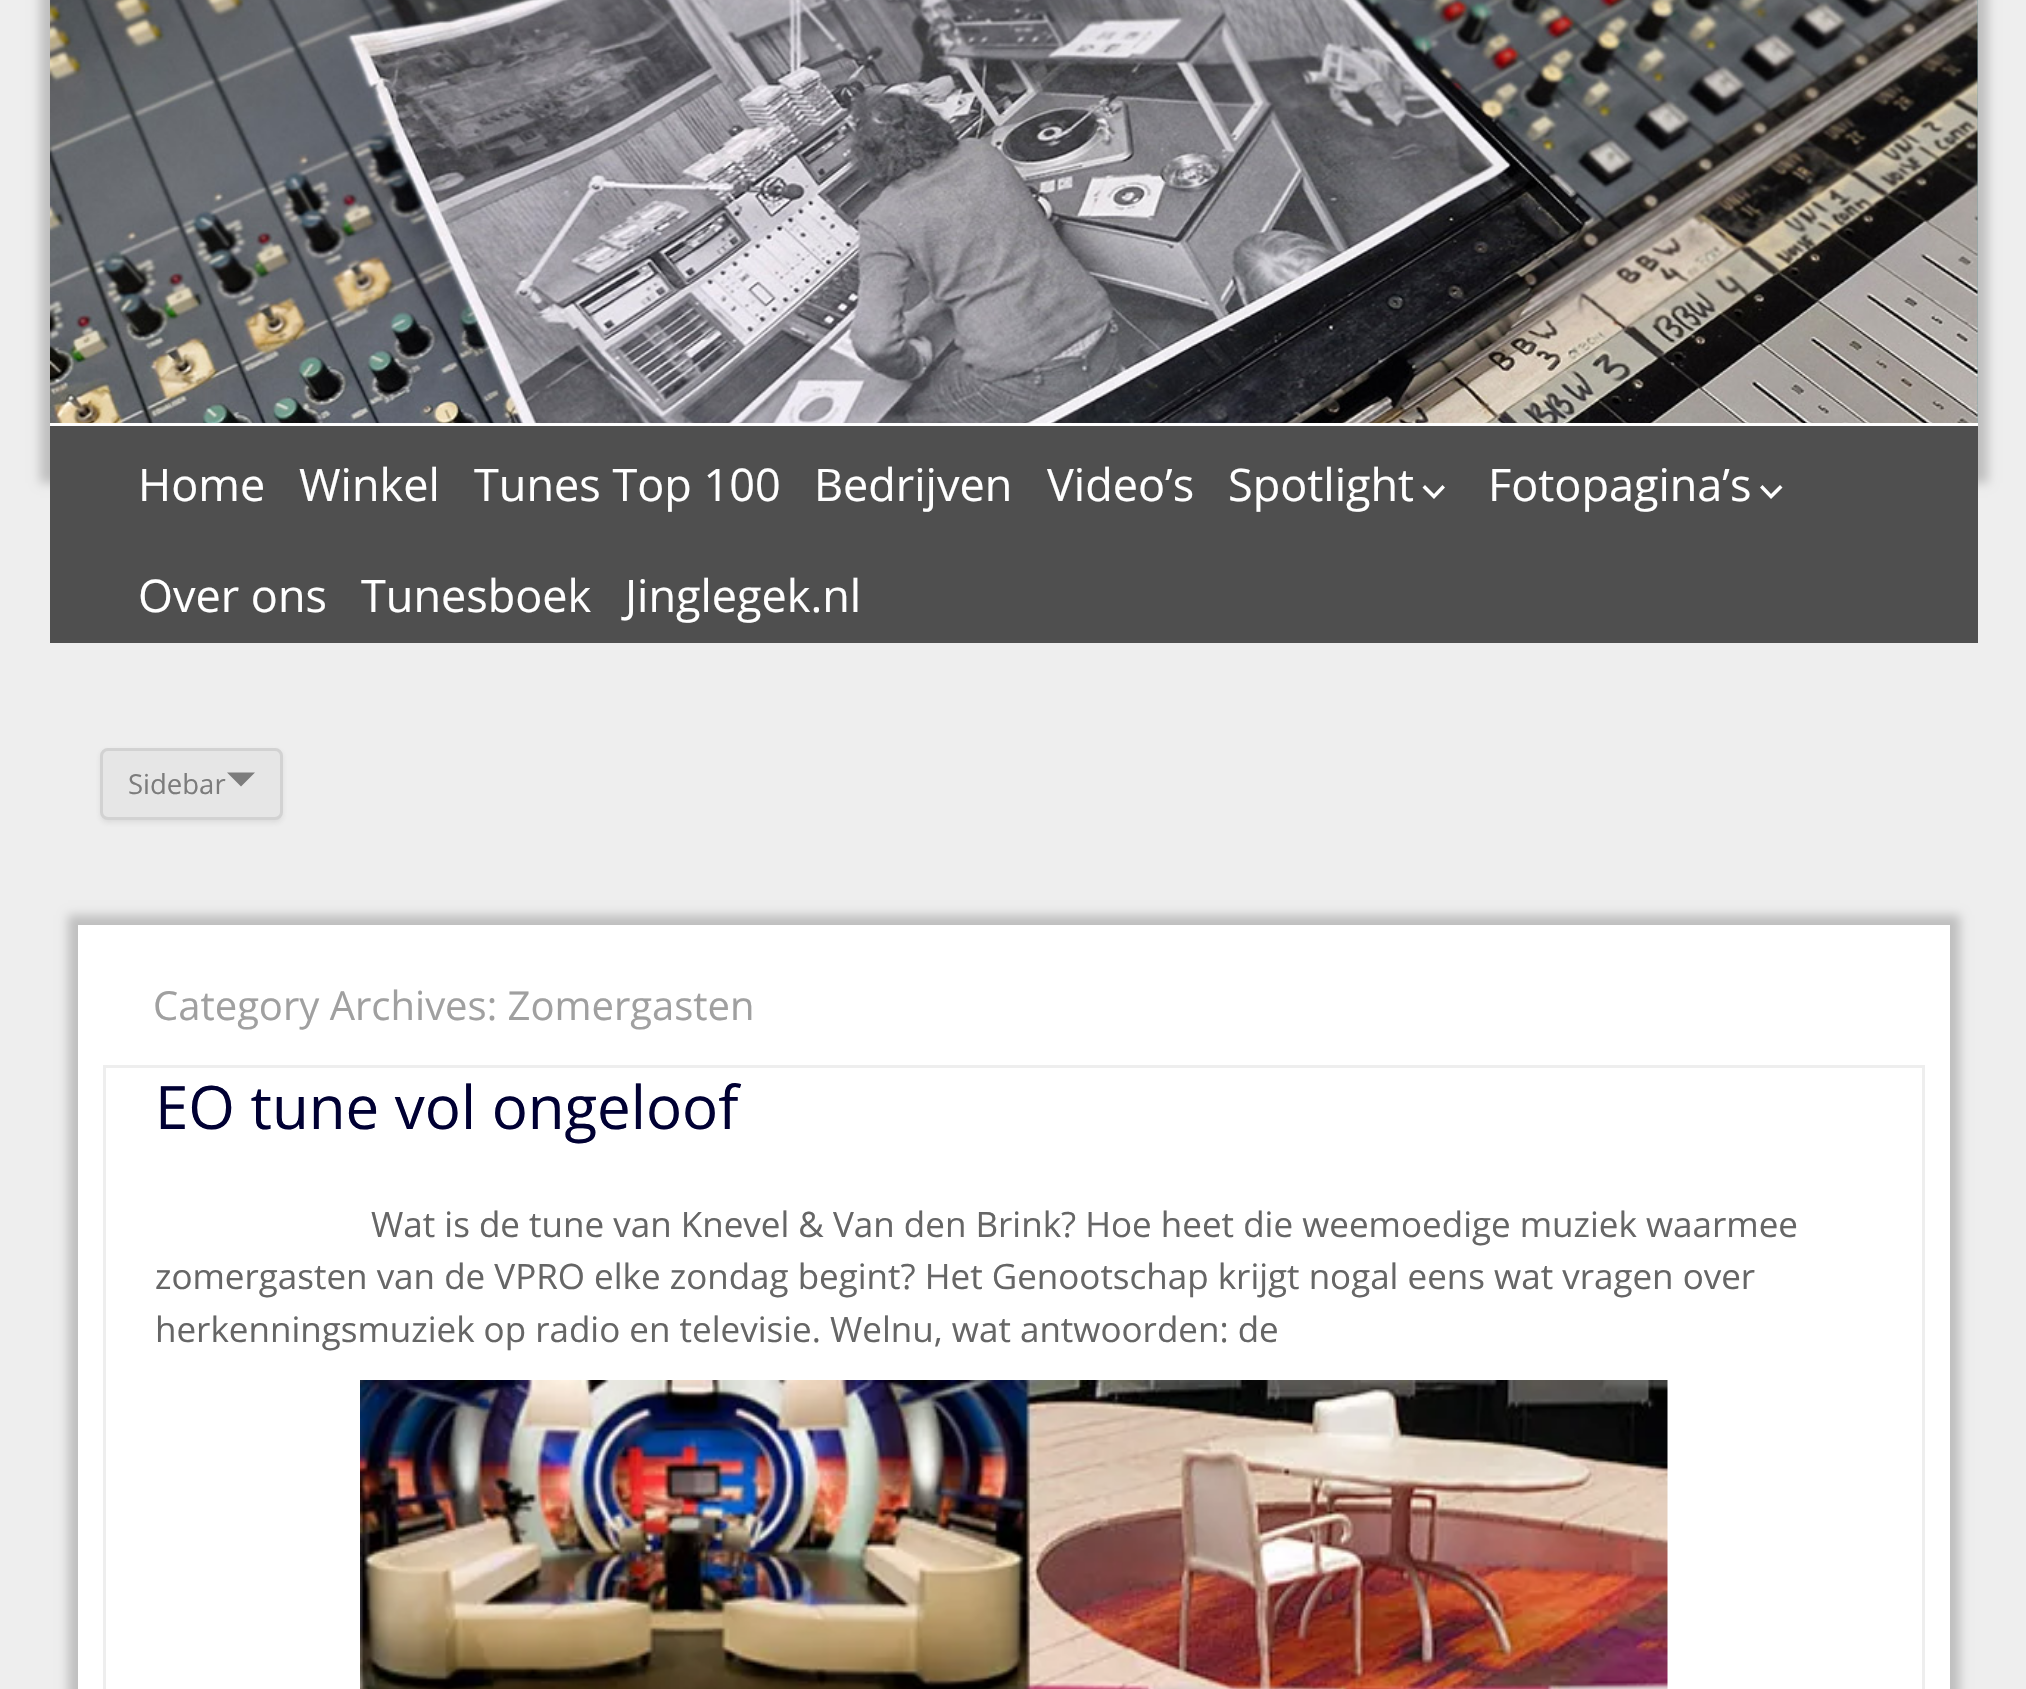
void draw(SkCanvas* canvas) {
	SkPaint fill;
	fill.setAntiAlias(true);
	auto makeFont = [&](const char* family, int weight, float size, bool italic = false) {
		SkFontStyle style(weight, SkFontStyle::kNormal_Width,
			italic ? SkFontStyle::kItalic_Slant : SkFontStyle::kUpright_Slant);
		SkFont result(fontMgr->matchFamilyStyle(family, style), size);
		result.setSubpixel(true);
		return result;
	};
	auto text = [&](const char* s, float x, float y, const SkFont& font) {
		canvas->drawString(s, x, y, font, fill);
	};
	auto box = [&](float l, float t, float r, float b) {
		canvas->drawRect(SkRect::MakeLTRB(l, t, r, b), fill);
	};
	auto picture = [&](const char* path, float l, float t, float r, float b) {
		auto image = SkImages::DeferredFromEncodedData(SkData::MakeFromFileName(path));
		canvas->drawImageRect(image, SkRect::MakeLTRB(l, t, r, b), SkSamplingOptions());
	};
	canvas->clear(0xFFEEEEEE);
	fill.setColor(0xFFBFBFBF);
	fill.setMaskFilter(SkMaskFilter::MakeBlur(kNormal_SkBlurStyle, 5));
	canvas->drawRect(SkRect::MakeLTRB(40, -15, 1988, 483), fill);
	fill.setMaskFilter(nullptr);
	fill.setColor(0x804D9799);
	box(1977, 0, 1978, 423);
	picture("image0.png", 50, 0, 1978, 423);
	fill.setColor(0xFF4F4F4F);
	box(50, 426, 1978, 643);
	fill.setColor(0xFFFFFFFF);
	box(50, 423, 1978, 426);
	canvas->drawPath(SkPathBuilder().moveTo(1442.5f, 485).lineTo(1445, 487.5f).lineTo(1434, 499).lineTo(1422.5f, 487.5f).lineTo(1425, 485).lineTo(1434, 494).close().detach(), fill);
	canvas->drawPath(SkPathBuilder().moveTo(1780, 485).lineTo(1782.5f, 487.5f).lineTo(1771, 499).lineTo(1760, 487.5f).lineTo(1762.5f, 485).lineTo(1771, 494).close().detach(), fill);
	fill.setColor(0x1A404040);
	fill.setMaskFilter(SkMaskFilter::MakeBlur(kNormal_SkBlurStyle, 2.5f));
	canvas->drawRoundRect(SkRect::MakeLTRB(100, 750, 283, 823), 8, 8, fill);
	fill.setMaskFilter(nullptr);
	fill.setColor(0xFFE6E6E6);
	canvas->drawRoundRect(SkRect::MakeLTRB(101.5f, 749.5f, 281.5f, 818.5f), 6.5f, 6.5f, fill);
	fill.setStyle(SkPaint::kStroke_Style);
	fill.setStrokeWidth(3);
	fill.setColor(0xFFD2D2D2);
	canvas->drawRoundRect(SkRect::MakeLTRB(101.5f, 749.5f, 281.5f, 818.5f), 6.5f, 6.5f, fill);
	fill.setStyle(SkPaint::kFill_Style);
	fill.setColor(0xFF7C7C7C);
	canvas->drawPath(SkPathBuilder().moveTo(227, 772.5f).lineTo(255, 772.5f).lineTo(241, 786.5f).close().detach(), fill);
	fill.setColor(0xFFBFBFBF);
	fill.setMaskFilter(SkMaskFilter::MakeBlur(kNormal_SkBlurStyle, 5));
	canvas->drawRect(SkRect::MakeLTRB(68, 915, 1960, 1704), fill);
	fill.setMaskFilter(nullptr);
	fill.setColor(0xFFFFFFFF);
	box(78, 925, 1950, 1689);
	fill.setStyle(SkPaint::kStroke_Style);
	fill.setColor(0xFFEEEEEE);
	canvas->drawRect(SkRect::MakeLTRB(104.5f, 1066.5f, 1923.5f, 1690.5f), fill);
	picture("image1.png", 360, 1380, 1668, 1689);
	auto font1 = makeFont("Open Sans", 400, 45);
	fill.setStyle(SkPaint::kFill_Style);
	fill.setColor(0xFFFFFFFF);
	text("Home", 138, 501, font1);
	text("Winkel", 299, 501, font1);
	text("Tunes Top 100", 474, 501, font1);
	text("Bedrijven", 814, 501, font1);
	text("Video’s", 1047, 501, font1);
	text("Spotlight", 1228, 501, font1);
	text("Fotopagina’s", 1488, 501, font1);
	text("Over ons", 138, 612, font1);
	text("Tunesboek", 361, 612, font1);
	text("Jinglegek.nl", 625, 612, font1);
	auto font2 = makeFont("Open Sans", 400, 27.5f);
	fill.setColor(0xFF7C7C7C);
	text("Sidebar", 128, 794, font2);
	auto font3 = makeFont("Open Sans", 400, 40);
	fill.setColor(0xFFA0A0A0);
	text("Category Archives: Zomergasten", 153, 1020, font3);
	auto font4 = makeFont("Open Sans", 400, 60);
	fill.setColor(0xFF000033);
	text("EO tune vol ongeloof", 155, 1129, font4);
	auto font5 = makeFont("Open Sans", 400, 35);
	fill.setColor(0xFF666666);
	text("Wat is de tune van Knevel & Van den Brink? Hoe heet die weemoedige muziek waarmee", 371, 1237, font5);
	text("zomergasten van de VPRO elke zondag begint? Het Genootschap krijgt nogal eens wat vragen over", 155, 1289, font5);
	text("herkenningsmuziek op radio en televisie. Welnu, wat antwoorden: de", 155, 1342, font5);
}
